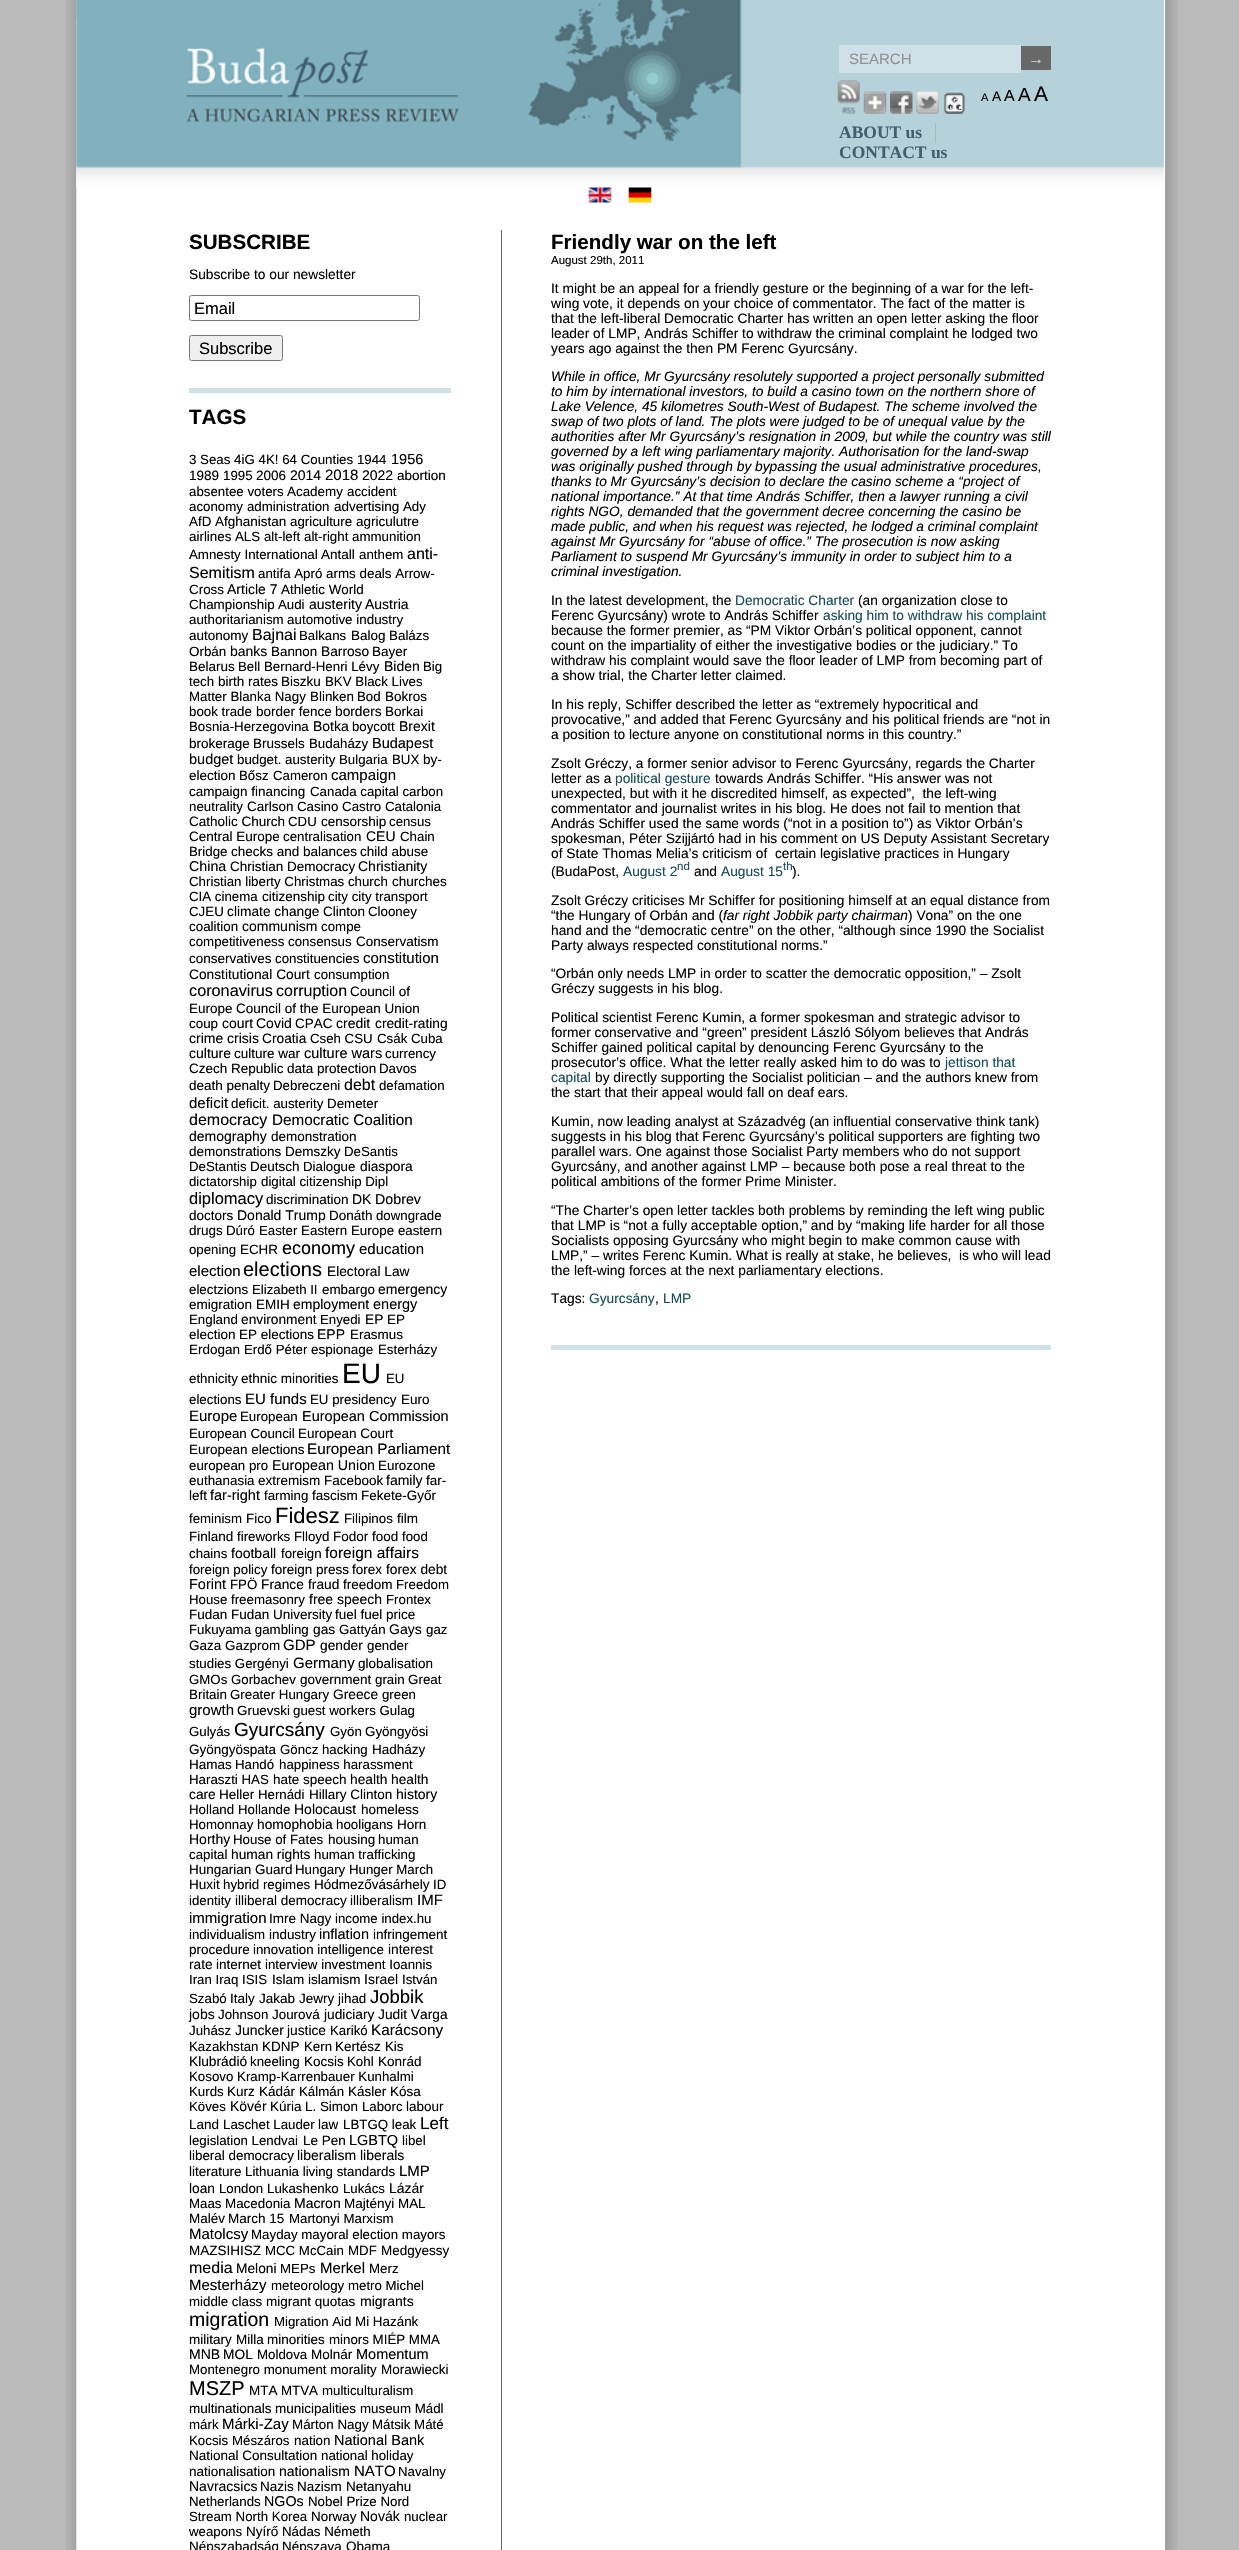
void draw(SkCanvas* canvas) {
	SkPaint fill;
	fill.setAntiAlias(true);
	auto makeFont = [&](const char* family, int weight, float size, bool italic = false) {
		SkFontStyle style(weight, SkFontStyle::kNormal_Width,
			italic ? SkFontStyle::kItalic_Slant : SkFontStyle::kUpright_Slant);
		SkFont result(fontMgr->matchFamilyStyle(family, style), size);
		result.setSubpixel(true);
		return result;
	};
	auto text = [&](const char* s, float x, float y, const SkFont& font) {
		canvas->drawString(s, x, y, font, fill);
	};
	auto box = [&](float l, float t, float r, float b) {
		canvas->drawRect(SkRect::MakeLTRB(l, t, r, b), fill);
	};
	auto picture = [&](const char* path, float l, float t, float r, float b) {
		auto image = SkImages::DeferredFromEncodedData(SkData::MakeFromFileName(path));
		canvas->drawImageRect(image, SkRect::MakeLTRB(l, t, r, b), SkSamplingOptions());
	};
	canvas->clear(0xFFBABABA);
	picture("image0.png", 66, 0, 1178, 2550);
	picture("image1.png", 76, 0, 1164, 188);
	picture("image2.png", 76, 0, 742, 168);
	fill.setColor(0xFFCFE1E7);
	box(839, 45, 1021, 73);
	fill.setColor(0xFF686868);
	box(1021, 46, 1051, 70);
	picture("image3.png", 837, 80, 860, 114);
	picture("image4.png", 863, 91, 887, 114);
	picture("image5.png", 890, 91, 913, 114);
	picture("image6.png", 916, 91, 939, 114);
	picture("image7.png", 942, 91, 965, 114);
	fill.setColor(0xFFA9B9BE);
	box(935, 123, 936, 143);
	picture("image8.png", 588, 187, 612, 203);
	picture("image9.png", 628, 187, 652, 203);
	fill.setColor(0xFF666666);
	box(501, 230, 502, 2550);
	fill.setColor(0xFFCFE1E7);
	box(189, 388, 451, 393);
	fill.setStyle(SkPaint::kStroke_Style);
	fill.setStrokeWidth(1);
	fill.setColor(0xFF767676);
	canvas->drawRoundRect(SkRect::MakeLTRB(189.5f, 295.5f, 419.5f, 320.5f), 2, 2, fill);
	fill.setStyle(SkPaint::kFill_Style);
	fill.setColor(0xFFEFEFEF);
	canvas->drawRoundRect(SkRect::MakeLTRB(189.5f, 335.5f, 282.5f, 360.5f), 2, 2, fill);
	fill.setStyle(SkPaint::kStroke_Style);
	fill.setColor(0xFF767676);
	canvas->drawRoundRect(SkRect::MakeLTRB(189.5f, 335.5f, 282.5f, 360.5f), 2, 2, fill);
	fill.setStyle(SkPaint::kFill_Style);
	fill.setColor(0xFFCFE1E7);
	box(551, 1345, 1051, 1350);
	auto font1 = makeFont("Liberation Sans", 400, 15);
	fill.setColor(0xFF919191);
	text("SEARCH", 849, 64, font1);
	auto font2 = makeFont("Liberation Sans", 400, 16);
	fill.setColor(0xFFD4D4D4);
	text("→", 1028, 64, font2);
	auto font3 = makeFont("Liberation Sans", 400, 11);
	fill.setColor(0xFF000000);
	text("A", 981, 101, font3);
	auto font4 = makeFont("Liberation Sans", 400, 13.75f);
	text("A", 992, 101, font4);
	text("A", 1004, 101, font2);
	auto font5 = makeFont("Liberation Sans", 400, 19);
	text("A", 1018, 101, font5);
	auto font6 = makeFont("Liberation Sans", 400, 21);
	text("A", 1034, 101, font6);
	auto font7 = makeFont("Liberation Serif", 700, 17.5f);
	fill.setColor(0xFF425F70);
	text("ABOUT us", 839, 138, font7);
	text("CONTACT us", 839, 158, font7);
	auto font8 = makeFont("Liberation Sans", 700, 20.6f);
	fill.setColor(0xFF000000);
	text("SUBSCRIBE", 189, 249, font8);
	text("Subscribe to our newsletter", 189, 279, font4);
	auto font9 = makeFont("Liberation Sans", 400, 16.5f);
	text("Email", 194, 314, font9);
	text("Subscribe", 199, 354, font9);
	text("TAGS", 189, 424, font8);
	auto font10 = makeFont("Liberation Sans", 400, 13.3f);
	text("3 Seas 4iG 4K! 64 Counties", 189, 464, font10);
	auto font11 = makeFont("Liberation Sans", 400, 13.25f);
	text("1944", 357, 464, font11);
	auto font12 = makeFont("Liberation Sans", 400, 14.5f);
	text("1956", 391, 464, font12);
	auto font13 = makeFont("Liberation Sans", 400, 13.5f);
	text("1989", 189, 480, font13);
	text("1995", 223, 480, font10);
	text("2006", 256, 480, font13);
	auto font14 = makeFont("Liberation Sans", 400, 14);
	text("2014", 290, 480, font14);
	text("2018", 325, 480, font1);
	text("2022", 362, 480, font14);
	text("abortion", 397, 480, font13);
	text("absentee voters", 189, 496, font10);
	auto font15 = makeFont("Liberation Sans", 400, 13.4f);
	text("Academy", 287, 496, font15);
	text("accident", 347, 496, font10);
	text("aconomy", 189, 511, font10);
	text("administration", 247, 511, font11);
	text("advertising", 334, 511, font13);
	text("Ady", 403, 511, font10);
	text("AfD", 189, 526, font15);
	text("Afghanistan", 215, 526, font13);
	text("agriculture", 290, 526, font10);
	text("agriculutre", 356, 526, font13);
	text("airlines", 189, 541, font15);
	text("ALS", 235, 541, font10);
	text("alt-left", 264, 541, font11);
	text("alt-right ammunition", 304, 541, font10);
	text("Amnesty International", 189, 559, font10);
	text("Antall", 321, 559, font13);
	text("anthem", 359, 559, font10);
	text("anti-", 407, 559, font2);
	text("Semitism", 189, 578, font2);
	text("antifa Apró", 258, 578, font10);
	text("arms deals Arrow-", 326, 578, font15);
	text("Cross", 189, 594, font15);
	text("Article 7", 227, 594, font14);
	text("Athletic World", 281, 594, font15);
	text("Championship", 189, 609, font15);
	text("Audi", 278, 609, font11);
	text("austerity", 309, 609, font14);
	text("Austria", 365, 609, font14);
	text("authoritarianism", 189, 624, font10);
	text("automotive industry", 287, 624, font15);
	text("autonomy", 189, 640, font13);
	text("Bajnai", 252, 640, font2);
	text("Balkans", 299, 640, font11);
	text("Balog", 351, 640, font13);
	text("Balázs", 389, 640, font15);
	text("Orbán", 189, 656, font15);
	text("banks", 230, 656, font14);
	text("Bannon", 271, 656, font15);
	text("Barroso", 321, 656, font4);
	text("Bayer", 372, 656, font13);
	text("Belarus", 189, 671, font13);
	text("Bell", 238, 671, font11);
	text("Bernard-Henri Lévy", 264, 671, font10);
	text("Biden", 384, 671, font14);
	text("Big", 423, 671, font10);
	text("tech", 189, 686, font10);
	text("birth rates", 218, 686, font13);
	text("Biszku", 281, 686, font13);
	text("BKV Black Lives", 325, 686, font10);
	text("Matter Blanka Nagy", 189, 701, font10);
	text("Blinken", 310, 701, font15);
	text("Bod", 357, 701, font10);
	text("Bokros", 385, 701, font13);
	text("book trade", 189, 716, font10);
	text("border fence", 256, 716, font13);
	text("borders", 335, 716, font4);
	text("Borkai", 385, 716, font13);
	text("Bosnia-Herzegovina", 189, 731, font10);
	text("Botka", 313, 731, font14);
	text("boycott", 352, 731, font11);
	text("Brexit", 399, 731, font14);
	text("brokerage", 189, 748, font13);
	text("Brussels", 253, 748, font13);
	text("Budaházy", 309, 748, font10);
	text("Budapest", 372, 748, font12);
	text("budget", 189, 764, font12);
	text("budget. austerity", 237, 764, font10);
	text("Bulgaria", 339, 764, font11);
	text("BUX", 392, 764, font10);
	text("by-", 423, 764, font13);
	text("election", 189, 780, font13);
	text("Bősz", 239, 780, font10);
	text("Cameron", 273, 780, font11);
	text("campaign", 331, 780, font1);
	text("campaign financing", 189, 796, font13);
	text("Canada capital carbon", 310, 796, font10);
	text("neutrality", 189, 811, font10);
	text("Carlson", 247, 811, font13);
	text("Casino Castro Catalonia", 297, 811, font10);
	text("Catholic Church", 189, 826, font13);
	text("CDU", 288, 826, font11);
	text("censorship", 321, 826, font13);
	text("census", 389, 826, font11);
	text("Central Europe", 189, 841, font13);
	text("centralisation", 283, 841, font10);
	text("CEU", 366, 841, font14);
	text("Chain", 400, 841, font10);
	text("Bridge", 189, 856, font10);
	text("checks and balances", 231, 856, font13);
	text("child abuse", 360, 856, font13);
	auto font16 = makeFont("Liberation Sans", 400, 14.25f);
	text("China", 189, 871, font16);
	text("Christian Democracy", 230, 871, font13);
	text("Christianity", 358, 871, font14);
	text("Christian liberty Christmas church", 189, 886, font10);
	text("churches", 392, 886, font13);
	text("CIA cinema", 189, 901, font10);
	text("citizenship", 262, 901, font13);
	text("city city transport", 328, 901, font10);
	text("CJEU", 189, 916, font10);
	text("climate change", 227, 916, font4);
	text("Clinton", 323, 916, font13);
	text("Clooney", 368, 916, font10);
	text("coalition", 189, 931, font15);
	text("communism", 242, 931, font14);
	text("compe", 321, 931, font10);
	text("competitiveness consensus", 189, 946, font10);
	text("Conservatism", 356, 946, font13);
	text("conservatives", 189, 963, font13);
	text("constituencies", 275, 963, font10);
	text("constitution", 363, 963, font1);
	text("Constitutional Court", 189, 979, font4);
	text("consumption", 314, 979, font10);
	auto font17 = makeFont("Liberation Sans", 400, 16.25f);
	text("coronavirus", 189, 996, font17);
	text("corruption", 276, 996, font2);
	text("Council of", 350, 996, font13);
	text("Europe", 189, 1013, font13);
	text("Council of the European Union", 236, 1013, font13);
	text("coup", 189, 1028, font15);
	text("court", 222, 1028, font14);
	text("Covid", 256, 1028, font14);
	text("CPAC", 295, 1028, font13);
	text("credit", 336, 1028, font14);
	text("credit-rating", 375, 1028, font4);
	text("crime", 189, 1043, font14);
	text("crisis", 227, 1043, font14);
	text("Croatia", 262, 1043, font4);
	text("Cseh CSU", 310, 1043, font11);
	text("Csák", 377, 1043, font10);
	text("Cuba", 411, 1043, font11);
	text("culture", 189, 1058, font14);
	text("culture war", 234, 1058, font13);
	text("culture wars", 304, 1058, font12);
	text("currency", 385, 1058, font10);
	text("Czech Republic", 189, 1073, font13);
	text("data protection", 287, 1073, font13);
	text("Davos", 379, 1073, font10);
	text("death penalty", 189, 1090, font13);
	text("Debreczeni", 273, 1090, font10);
	text("debt", 344, 1090, font2);
	text("defamation", 379, 1090, font11);
	text("deficit", 189, 1108, font1);
	text("deficit. austerity Demeter", 231, 1108, font10);
	text("democracy", 189, 1125, font2);
	auto font18 = makeFont("Liberation Sans", 400, 15.25f);
	text("Democratic Coalition", 272, 1125, font18);
	text("demography", 189, 1141, font14);
	text("demonstration", 271, 1141, font13);
	text("demonstrations", 189, 1156, font13);
	text("Demszky", 285, 1156, font13);
	text("DeSantis", 344, 1156, font10);
	text("DeStantis", 189, 1171, font10);
	text("Deutsch", 250, 1171, font13);
	text("Dialogue", 303, 1171, font11);
	text("diaspora", 360, 1171, font4);
	text("dictatorship", 189, 1186, font11);
	text("digital citizenship Dipl", 261, 1186, font10);
	text("diplomacy", 189, 1204, font9);
	text("discrimination", 266, 1204, font13);
	text("DK", 352, 1204, font14);
	text("Dobrev", 375, 1204, font16);
	text("doctors", 189, 1220, font13);
	text("Donald Trump", 237, 1220, font14);
	text("Donáth", 329, 1220, font13);
	text("downgrade", 376, 1220, font11);
	text("drugs", 189, 1235, font13);
	text("Dúró", 226, 1235, font10);
	text("Easter", 259, 1235, font11);
	text("Eastern Europe", 301, 1235, font15);
	text("eastern", 398, 1235, font11);
	text("opening", 189, 1254, font11);
	text("ECHR", 240, 1254, font15);
	auto font19 = makeFont("Liberation Sans", 400, 18);
	text("economy", 282, 1254, font19);
	text("education", 359, 1254, font1);
	text("election", 189, 1276, font1);
	auto font20 = makeFont("Liberation Sans", 400, 20);
	text("elections", 243, 1276, font20);
	text("Electoral Law", 327, 1276, font4);
	text("electzions", 189, 1294, font10);
	text("Elizabeth II", 252, 1294, font11);
	text("embargo", 322, 1294, font15);
	text("emergency", 378, 1294, font14);
	text("emigration", 189, 1309, font13);
	text("EMIH", 256, 1309, font13);
	text("employment", 293, 1309, font14);
	text("energy", 373, 1309, font12);
	text("England", 189, 1324, font10);
	text("environment", 241, 1324, font4);
	text("Enyedi", 320, 1324, font11);
	text("EP", 365, 1324, font4);
	text("EP", 387, 1324, font13);
	text("election", 189, 1339, font13);
	text("EP elections", 239, 1339, font13);
	text("EPP", 317, 1339, font14);
	text("Erasmus", 350, 1339, font15);
	text("Erdogan", 189, 1354, font13);
	text("Erdő Péter", 244, 1354, font11);
	text("espionage", 311, 1354, font13);
	text("Esterházy", 378, 1354, font10);
	text("ethnicity", 189, 1383, font10);
	text("ethnic minorities", 241, 1383, font13);
	auto font21 = makeFont("Liberation Sans", 400, 28);
	text("EU", 342, 1383, font21);
	text("EU", 386, 1383, font10);
	text("elections", 189, 1404, font10);
	text("EU funds", 245, 1404, font1);
	text("EU presidency", 310, 1404, font10);
	text("Euro", 401, 1404, font13);
	text("Europe", 189, 1421, font1);
	text("European", 240, 1421, font10);
	text("European Commission", 302, 1421, font12);
	text("European Council", 189, 1438, font10);
	text("European Court", 298, 1438, font13);
	text("European elections", 189, 1454, font13);
	text("European Parliament", 307, 1454, font18);
	text("european pro", 189, 1470, font10);
	text("European Union", 272, 1470, font16);
	text("Eurozone", 378, 1470, font15);
	text("euthanasia", 189, 1485, font15);
	text("extremism", 258, 1485, font13);
	text("Facebook", 324, 1485, font13);
	text("family", 386, 1485, font14);
	text("far-", 426, 1485, font13);
	text("left", 189, 1500, font13);
	text("far-right", 210, 1500, font12);
	text("farming", 264, 1500, font10);
	text("fascism", 312, 1500, font13);
	text("Fekete-Győr", 361, 1500, font13);
	text("feminism", 189, 1523, font11);
	text("Fico", 246, 1523, font13);
	auto font22 = makeFont("Liberation Sans", 400, 22);
	text("Fidesz", 275, 1523, font22);
	text("Filipinos", 344, 1523, font10);
	text("film", 397, 1523, font13);
	text("Finland", 189, 1541, font13);
	text("fireworks Flloyd", 237, 1541, font10);
	text("Fodor", 333, 1541, font13);
	text("food", 372, 1541, font13);
	text("food", 402, 1541, font11);
	text("chains", 189, 1558, font11);
	text("football", 231, 1558, font14);
	text("foreign", 281, 1558, font10);
	auto font23 = makeFont("Liberation Sans", 400, 15.5f);
	text("foreign affairs", 325, 1558, font23);
	text("foreign policy", 189, 1574, font10);
	text("foreign press", 271, 1574, font13);
	text("forex", 352, 1574, font13);
	text("forex debt", 386, 1574, font4);
	text("Forint", 189, 1589, font12);
	text("FPÖ", 230, 1589, font10);
	text("France", 261, 1589, font4);
	text("fraud", 308, 1589, font4);
	text("freedom", 343, 1589, font13);
	text("Freedom", 396, 1589, font11);
	text("House", 189, 1604, font11);
	text("freemasonry", 231, 1604, font10);
	text("free speech", 309, 1604, font14);
	text("Frontex", 386, 1604, font11);
	text("Fudan", 189, 1619, font13);
	text("Fudan University", 231, 1619, font13);
	text("fuel fuel price", 335, 1619, font13);
	text("Fukuyama gambling", 189, 1634, font10);
	text("gas", 313, 1634, font4);
	text("Gattyán", 339, 1634, font10);
	text("Gays", 389, 1634, font14);
	text("gaz", 426, 1634, font10);
	text("Gaza", 189, 1650, font13);
	text("Gazprom", 225, 1650, font15);
	text("GDP", 283, 1650, font1);
	text("gender", 320, 1650, font4);
	text("gender", 367, 1650, font10);
	text("studies Gergényi", 189, 1668, font10);
	text("Germany", 293, 1668, font1);
	text("globalisation", 358, 1668, font13);
	text("GMOs Gorbachev", 189, 1684, font11);
	text("government", 300, 1684, font13);
	text("grain", 375, 1684, font10);
	text("Great", 408, 1684, font15);
	text("Britain", 189, 1699, font15);
	text("Greater Hungary", 230, 1699, font10);
	text("Greece", 333, 1699, font4);
	text("green", 382, 1699, font11);
	text("growth", 189, 1715, font1);
	text("Gruevski", 237, 1715, font15);
	text("guest workers Gulag", 293, 1715, font10);
	text("Gulyás", 189, 1736, font11);
	text("Gyurcsány", 234, 1736, font5);
	text("Gyön", 330, 1736, font10);
	text("Gyöngyösi", 365, 1736, font15);
	text("Gyöngyöspata", 189, 1754, font13);
	text("Göncz hacking", 280, 1754, font11);
	text("Hadházy", 372, 1754, font13);
	text("Hamas", 189, 1769, font13);
	text("Handó", 235, 1769, font11);
	text("happiness harassment", 279, 1769, font10);
	text("Haraszti HAS", 189, 1784, font10);
	text("hate speech", 273, 1784, font13);
	text("health", 350, 1784, font4);
	text("health", 391, 1784, font4);
	text("care", 189, 1799, font4);
	text("Heller", 219, 1799, font13);
	text("Hernádi", 258, 1799, font11);
	text("Hillary Clinton", 309, 1799, font13);
	text("history", 396, 1799, font14);
	text("Holland", 189, 1814, font10);
	text("Hollande", 238, 1814, font11);
	text("Holocaust", 294, 1814, font14);
	text("homeless", 361, 1814, font13);
	text("Homonnay", 189, 1829, font10);
	text("homophobia", 257, 1829, font4);
	text("hooligans", 336, 1829, font10);
	text("Horn", 397, 1829, font13);
	text("Horthy", 189, 1844, font14);
	text("House of Fates", 233, 1844, font10);
	text("housing", 328, 1844, font13);
	text("human", 378, 1844, font10);
	text("capital", 189, 1859, font10);
	text("human rights", 231, 1859, font4);
	text("human trafficking", 314, 1859, font10);
	text("Hungarian Guard", 189, 1874, font13);
	text("Hungary Hunger March", 295, 1874, font10);
	text("Huxit", 189, 1889, font13);
	text("hybrid regimes", 223, 1889, font10);
	text("Hódmezővásárhely", 314, 1889, font13);
	text("ID", 433, 1889, font10);
	text("identity", 189, 1905, font11);
	text("illiberal democracy", 235, 1905, font13);
	text("illiberalism", 350, 1905, font13);
	text("IMF", 417, 1905, font1);
	text("immigration", 189, 1923, font1);
	text("Imre Nagy", 269, 1923, font13);
	text("income index.hu", 335, 1923, font11);
	text("individualism", 189, 1939, font10);
	text("industry", 269, 1939, font15);
	text("inflation", 319, 1939, font12);
	text("infringement", 373, 1939, font13);
	text("procedure", 189, 1954, font13);
	text("innovation intelligence", 253, 1954, font10);
	text("interest", 388, 1954, font4);
	text("rate", 189, 1969, font4);
	text("internet", 216, 1969, font13);
	text("interview investment Ioannis", 265, 1969, font10);
	text("Iran Iraq ISIS", 189, 1984, font11);
	text("Islam", 272, 1984, font13);
	text("islamism", 308, 1984, font13);
	text("Israel", 364, 1984, font14);
	text("István", 402, 1984, font10);
	text("Szabó", 189, 2003, font10);
	text("Italy", 230, 2003, font13);
	text("Jakab", 259, 2003, font13);
	text("Jewry", 299, 2003, font13);
	text("jihad", 338, 2003, font15);
	auto font24 = makeFont("Liberation Sans", 400, 18.5f);
	text("Jobbik", 370, 2003, font24);
	text("jobs", 189, 2019, font14);
	text("Johnson", 218, 2019, font10);
	text("Jourová", 272, 2019, font15);
	text("judiciary", 324, 2019, font4);
	text("Judit Varga", 378, 2019, font4);
	text("Juhász", 189, 2035, font10);
	text("Juncker", 235, 2035, font14);
	text("justice", 287, 2035, font4);
	text("Karikó", 330, 2035, font10);
	text("Karácsony", 371, 2035, font18);
	text("Kazakhstan", 189, 2051, font10);
	text("KDNP", 262, 2051, font13);
	text("Kern", 304, 2051, font10);
	text("Kertész", 335, 2051, font13);
	text("Kis", 385, 2051, font10);
	text("Klubrádió", 189, 2066, font4);
	text("kneeling", 250, 2066, font10);
	text("Kocsis", 304, 2066, font13);
	text("Kohl", 347, 2066, font10);
	text("Konrád", 378, 2066, font13);
	text("Kosovo Kramp-Karrenbauer Kunhalmi", 189, 2081, font10);
	text("Kurds", 189, 2096, font10);
	text("Kurz", 227, 2096, font13);
	text("Kádár", 259, 2096, font13);
	text("Kálmán", 299, 2096, font10);
	text("Kásler Kósa", 348, 2096, font13);
	text("Köves", 189, 2111, font11);
	text("Kövér", 230, 2111, font14);
	text("Kúria", 270, 2111, font13);
	text("L. Simon", 305, 2111, font15);
	text("Laborc", 362, 2111, font11);
	text("labour", 406, 2111, font13);
	text("Land", 189, 2129, font13);
	text("Laschet Lauder", 223, 2129, font10);
	text("law", 318, 2129, font13);
	text("LBTGQ leak", 343, 2129, font10);
	auto font25 = makeFont("Liberation Sans", 400, 17);
	text("Left", 420, 2129, font25);
	text("legislation Lendvai", 189, 2145, font11);
	text("Le Pen", 303, 2145, font13);
	text("LGBTQ", 349, 2145, font12);
	text("libel", 402, 2145, font10);
	text("liberal democracy", 189, 2160, font15);
	text("liberalism", 297, 2160, font14);
	text("liberals", 360, 2160, font14);
	text("literature", 189, 2176, font13);
	text("Lithuania living standards", 245, 2176, font10);
	text("LMP", 399, 2176, font1);
	text("loan", 189, 2193, font4);
	text("London", 219, 2193, font11);
	text("Lukashenko", 267, 2193, font10);
	text("Lukács", 343, 2193, font11);
	text("Lázár", 389, 2193, font14);
	text("Maas", 189, 2208, font10);
	text("Macedonia", 225, 2208, font15);
	text("Macron", 294, 2208, font14);
	text("Majtényi", 344, 2208, font13);
	text("MAL", 398, 2208, font15);
	text("Malév", 189, 2223, font13);
	text("March 15", 228, 2223, font13);
	text("Martonyi Marxism", 289, 2223, font11);
	text("Matolcsy", 189, 2239, font1);
	text("Mayday mayoral election mayors", 251, 2239, font10);
	text("MAZSIHISZ", 189, 2255, font13);
	text("MCC McCain", 265, 2255, font11);
	text("MDF", 348, 2255, font10);
	text("Medgyessy", 381, 2255, font13);
	text("media", 189, 2273, font2);
	text("Meloni", 236, 2273, font4);
	text("MEPs", 280, 2273, font11);
	text("Merkel", 320, 2273, font1);
	text("Merz", 369, 2273, font10);
	text("Mesterházy", 189, 2290, font1);
	text("meteorology", 271, 2290, font10);
	text("metro Michel", 348, 2290, font11);
	text("middle class", 189, 2306, font10);
	text("migrant quotas", 266, 2306, font13);
	text("migrants", 360, 2306, font14);
	auto font26 = makeFont("Liberation Sans", 400, 19.5f);
	text("migration", 189, 2326, font26);
	text("Migration Aid", 274, 2326, font11);
	text("Mi Hazánk", 355, 2326, font15);
	text("military", 189, 2344, font13);
	text("Milla", 236, 2344, font13);
	text("minorities", 267, 2344, font13);
	text("minors MIÉP MMA", 329, 2344, font10);
	text("MNB", 189, 2359, font14);
	text("MOL", 223, 2359, font4);
	text("Moldova", 257, 2359, font10);
	text("Molnár", 311, 2359, font13);
	text("Momentum", 356, 2359, font12);
	text("Montenegro monument morality", 189, 2374, font10);
	text("Morawiecki", 381, 2374, font13);
	text("MSZP", 189, 2395, font20);
	text("MTA", 249, 2395, font13);
	text("MTVA", 281, 2395, font10);
	text("multiculturalism", 322, 2395, font11);
	text("multinationals", 189, 2413, font13);
	text("municipalities", 275, 2413, font13);
	text("museum Mádl", 360, 2413, font10);
	text("márk", 189, 2429, font10);
	text("Márki-Zay", 222, 2429, font1);
	text("Márton Nagy", 292, 2429, font15);
	text("Mátsik Máté", 372, 2429, font10);
	text("Kocsis", 189, 2445, font10);
	text("Mészáros", 232, 2445, font11);
	text("nation", 294, 2445, font15);
	text("National Bank", 334, 2445, font12);
	text("National Consultation", 189, 2460, font13);
	text("national holiday", 321, 2460, font10);
	text("nationalisation", 189, 2476, font13);
	text("nationalism", 279, 2476, font14);
	text("NATO", 354, 2476, font1);
	text("Navalny", 398, 2476, font11);
	text("Navracsics", 189, 2491, font14);
	text("Nazis", 260, 2491, font13);
	text("Nazism", 297, 2491, font15);
	text("Netanyahu", 346, 2491, font13);
	text("Netherlands", 189, 2506, font10);
	text("NGOs", 264, 2506, font16);
	text("Nobel Prize Nord", 308, 2506, font10);
	text("Stream North Korea", 189, 2521, font10);
	text("Norway", 311, 2521, font15);
	text("Novák", 360, 2521, font14);
	text("nuclear", 404, 2521, font11);
	text("weapons", 189, 2536, font11);
	text("Nyírő", 246, 2536, font13);
	text("Nádas Németh", 282, 2536, font10);
	text("Népszabadság", 189, 2551, font13);
	text("Népszava", 282, 2551, font15);
	text("Obama", 346, 2551, font13);
	text("Friendly war on the left", 551, 249, font8);
	auto font27 = makeFont("Liberation Sans", 400, 11.5f);
	text("August 29th, 2011", 551, 264, font27);
	text("It might be an appeal for a friendly gesture or the beginning of a war for the left-", 551, 293, font4);
	text("wing vote, it depends on your choice of commentator. The fact of the matter is", 551, 308, font4);
	text("that the left-liberal Democratic Charter has written an open letter asking the floor", 551, 323, font4);
	text("leader of LMP, András Schiffer to withdraw the criminal complaint he lodged two", 551, 338, font4);
	text("years ago against the then PM Ferenc Gyurcsány.", 551, 353, font4);
	auto font28 = makeFont("Liberation Sans", 400, 13.75f, true);
	text("While in office, Mr Gyurcsány resolutely supported a project personally submitted", 551, 381, font28);
	text("to him by international investors, to build a casino town on the northern shore of", 551, 396, font28);
	text("Lake Velence, 45 kilometres South-West of Budapest. The scheme involved the", 551, 411, font28);
	text("swap of two plots of land. The plots were judged to be of unequal value by the", 551, 426, font28);
	text("authorities after Mr Gyurcsány’s resignation in 2009, but while the country was still", 551, 441, font28);
	text("governed by a left wing parliamentary majority. Authorisation for the land-swap", 551, 456, font28);
	text("was originally pushed through by bypassing the usual administrative procedures,", 551, 471, font28);
	text("thanks to Mr Gyurcsány’s decision to declare the casino scheme a “project of", 551, 486, font28);
	text("national importance.” At that time András Schiffer, then a lawyer running a civil", 551, 501, font28);
	text("rights NGO, demanded that the government decree concerning the casino be", 551, 516, font28);
	text("made public, and when his request was rejected, he lodged a criminal complaint", 551, 531, font28);
	text("against Mr Gyurcsány for “abuse of office.” The prosecution is now asking", 551, 546, font28);
	text("Parliament to suspend Mr Gyurcsány’s immunity in order to subject him to a", 551, 561, font28);
	text("criminal investigation.", 551, 576, font28);
	text("In the latest development, the", 551, 605, font4);
	fill.setColor(0xFF174B58);
	text("Democratic Charter", 735, 605, font4);
	fill.setColor(0xFF000000);
	text("(an organization close to", 858, 605, font4);
	text("Ferenc Gyurcsány) wrote to András Schiffer", 551, 620, font4);
	fill.setColor(0xFF174B58);
	text("asking him to withdraw his complaint", 823, 620, font4);
	fill.setColor(0xFF000000);
	text("because the former premier, as “PM Viktor Orbán’s political opponent, cannot", 551, 635, font4);
	text("count on the impartiality of either the investigative bodies or the judiciary.” To", 551, 650, font4);
	text("withdraw his complaint would save the floor leader of LMP from becoming part of", 551, 665, font4);
	text("a show trial, the Charter letter claimed.", 551, 680, font4);
	text("In his reply, Schiffer described the letter as “extremely hypocritical and", 551, 709, font4);
	text("provocative,” and added that Ferenc Gyurcsány and his political friends are “not in", 551, 724, font4);
	text("a position to lecture anyone on constitutional norms in this country.”", 551, 739, font4);
	text("Zsolt Gréczy, a former senior advisor to Ferenc Gyurcsány, regards the Charter", 551, 768, font4);
	text("letter as a", 551, 783, font4);
	fill.setColor(0xFF174B58);
	text("political gesture", 615, 783, font4);
	fill.setColor(0xFF000000);
	text("towards András Schiffer. “His answer was not", 715, 783, font4);
	text("unexpected, but with it he discredited himself, as expected”,  the left-wing", 551, 798, font4);
	text("commentator and journalist writes in his blog. He does not fail to mention that", 551, 813, font4);
	text("András Schiffer used the same words (“not in a position to”) as Viktor Orbán’s", 551, 828, font4);
	text("spokesman, Péter Szijjártó had in his comment on US Deputy Assistant Secretary", 551, 843, font4);
	text("of State Thomas Melia’s criticism of  certain legislative practices in Hungary", 551, 858, font4);
	text("(BudaPost,", 551, 876, font4);
	fill.setColor(0xFF174B58);
	text("August 2", 623, 876, font4);
	text("nd", 677, 870, font27);
	fill.setColor(0xFF000000);
	text("and", 694, 876, font4);
	fill.setColor(0xFF174B58);
	text("August 15", 721, 876, font4);
	text("th", 783, 870, font27);
	fill.setColor(0xFF000000);
	text(").", 792, 876, font4);
	text("Zsolt Gréczy criticises Mr Schiffer for positioning himself at an equal distance from", 551, 905, font4);
	text("“the Hungary of Orbán and (", 551, 920, font4);
	text("far right Jobbik party chairman", 723, 920, font28);
	text(") Vona” on the one", 908, 920, font4);
	text("hand and the “democratic centre” on the other, “although since 1990 the Socialist", 551, 935, font4);
	text("Party always respected constitutional norms.”", 551, 950, font4);
	text("“Orbán only needs LMP in order to scatter the democratic opposition,” – Zsolt", 551, 978, font4);
	text("Gréczy suggests in his blog.", 551, 993, font4);
	text("Political scientist Ferenc Kumin, a former spokesman and strategic advisor to", 551, 1022, font4);
	text("former conservative and “green” president László Sólyom believes that András", 551, 1037, font4);
	text("Schiffer gained political capital by denouncing Ferenc Gyurcsány to the", 551, 1052, font4);
	text("prosecutor’s office. What the letter really asked him to do was to", 551, 1067, font4);
	fill.setColor(0xFF174B58);
	text("jettison that", 945, 1067, font4);
	text("capital", 551, 1082, font4);
	fill.setColor(0xFF000000);
	text("by directly supporting the Socialist politician – and the authors knew from", 595, 1082, font4);
	text("the start that their appeal would fall on deaf ears.", 551, 1097, font4);
	text("Kumin, now leading analyst at Századvég (an influential conservative think tank)", 551, 1126, font4);
	text("suggests in his blog that Ferenc Gyurcsány’s political supporters are fighting two", 551, 1141, font4);
	text("parallel wars. One against those Socialist Party members who do not support", 551, 1156, font4);
	text("Gyurcsány, and another against LMP – because both pose a real threat to the", 551, 1171, font4);
	text("political ambitions of the former Prime Minister.", 551, 1186, font4);
	text("“The Charter’s open letter tackles both problems by reminding the left wing public", 551, 1215, font4);
	text("that LMP is “not a fully acceptable option,” and by “making life harder for all those", 551, 1230, font4);
	text("Socialists opposing Gyurcsány who might begin to make common cause with", 551, 1245, font4);
	text("LMP,” – writes Ferenc Kumin. What is really at stake, he believes,  is who will lead", 551, 1260, font4);
	text("the left-wing forces at the next parliamentary elections.", 551, 1275, font4);
	text("Tags:", 551, 1303, font4);
	fill.setColor(0xFF174B58);
	text("Gyurcsány", 589, 1303, font4);
	fill.setColor(0xFF000000);
	text(",", 655, 1303, font4);
	fill.setColor(0xFF174B58);
	text("LMP", 663, 1303, font4);
}
